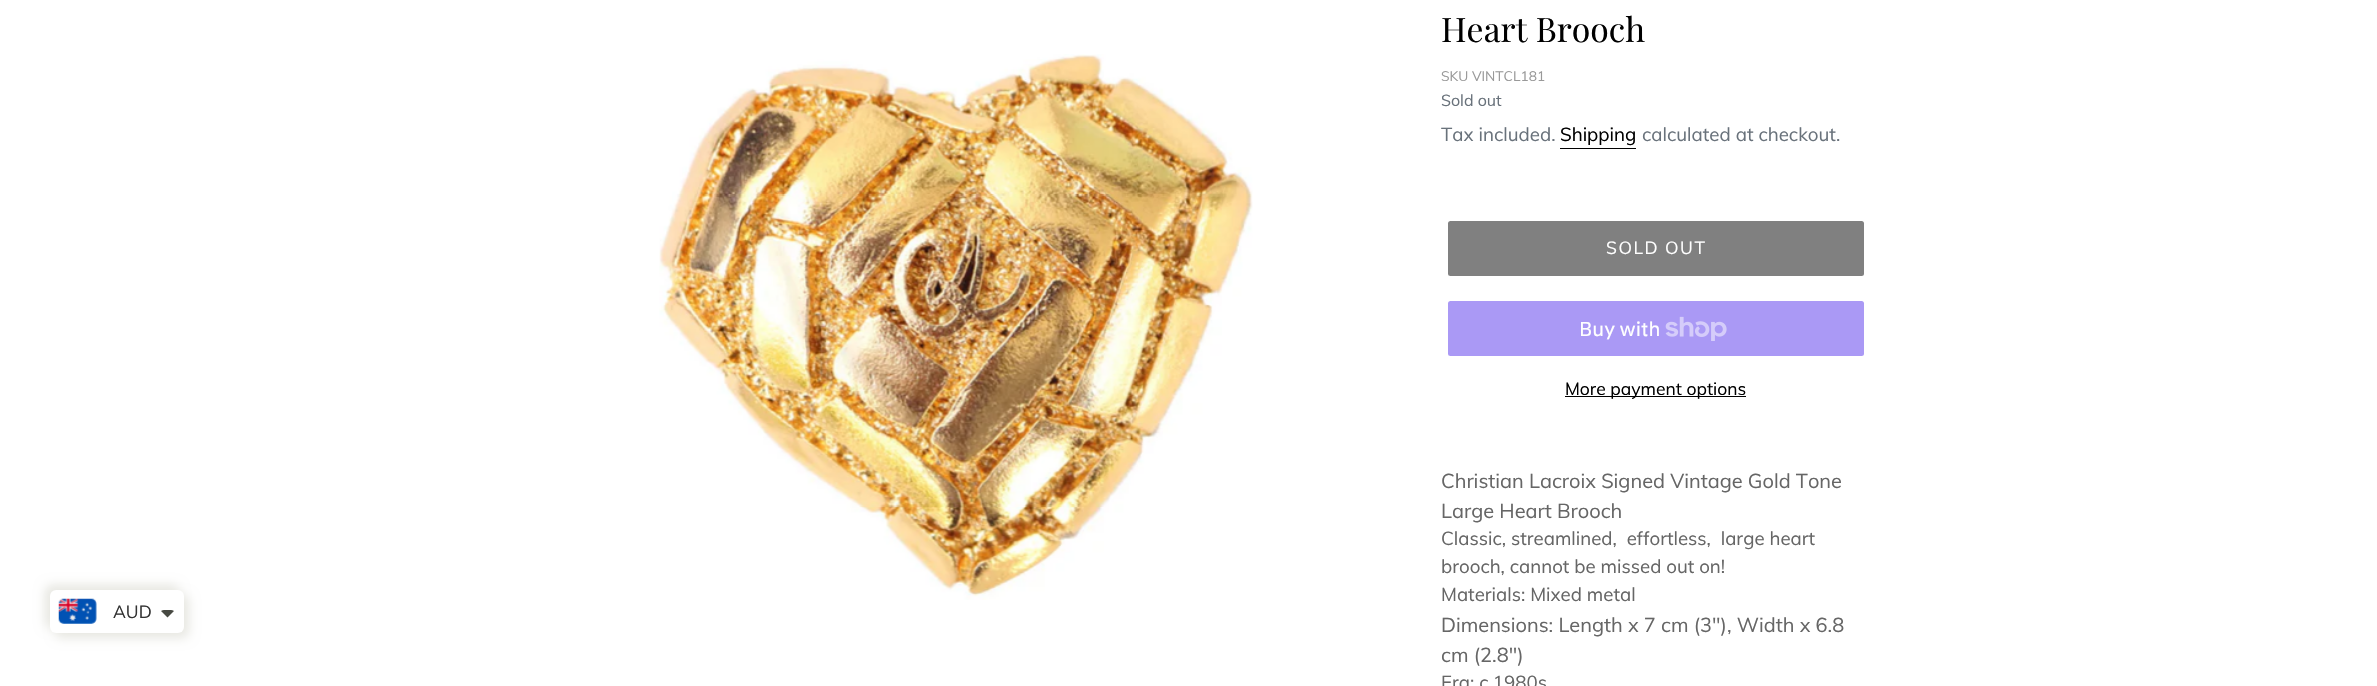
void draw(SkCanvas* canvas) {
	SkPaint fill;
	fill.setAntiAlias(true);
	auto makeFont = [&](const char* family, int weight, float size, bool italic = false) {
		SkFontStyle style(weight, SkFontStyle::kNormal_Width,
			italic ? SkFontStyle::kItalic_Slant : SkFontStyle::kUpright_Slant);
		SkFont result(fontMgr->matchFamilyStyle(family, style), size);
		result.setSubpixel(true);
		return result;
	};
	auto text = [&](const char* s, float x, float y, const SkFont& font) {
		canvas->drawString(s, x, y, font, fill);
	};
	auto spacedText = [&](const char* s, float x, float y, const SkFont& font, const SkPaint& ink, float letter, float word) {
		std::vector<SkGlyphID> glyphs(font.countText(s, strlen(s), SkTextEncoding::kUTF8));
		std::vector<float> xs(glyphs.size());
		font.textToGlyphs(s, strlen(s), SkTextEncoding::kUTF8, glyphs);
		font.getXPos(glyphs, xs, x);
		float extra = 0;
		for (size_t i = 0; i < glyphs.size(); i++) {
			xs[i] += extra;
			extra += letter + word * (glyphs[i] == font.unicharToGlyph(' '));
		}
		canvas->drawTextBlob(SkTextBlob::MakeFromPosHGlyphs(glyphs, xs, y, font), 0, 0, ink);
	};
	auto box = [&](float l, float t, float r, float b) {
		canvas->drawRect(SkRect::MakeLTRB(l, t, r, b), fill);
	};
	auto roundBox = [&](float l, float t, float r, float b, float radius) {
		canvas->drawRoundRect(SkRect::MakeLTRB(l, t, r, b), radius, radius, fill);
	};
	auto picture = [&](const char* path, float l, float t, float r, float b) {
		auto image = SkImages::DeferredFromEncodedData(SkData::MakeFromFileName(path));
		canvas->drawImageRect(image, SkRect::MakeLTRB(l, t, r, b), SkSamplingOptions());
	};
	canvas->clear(0xFFFFFFFF);
	fill.setColor(0xFFE8E8E2);
	fill.setMaskFilter(SkMaskFilter::MakeBlur(kNormal_SkBlurStyle, 5.5f));
	canvas->drawRoundRect(SkRect::MakeLTRB(45, 585, 179, 628), 6, 6, fill);
	fill.setMaskFilter(nullptr);
	fill.setMaskFilter(SkMaskFilter::MakeBlur(kNormal_SkBlurStyle, 5.5f));
	canvas->drawRoundRect(SkRect::MakeLTRB(55, 595, 189, 638), 6, 6, fill);
	fill.setMaskFilter(nullptr);
	fill.setColor(0xFFFFFFFF);
	roundBox(50, 590, 184, 633, 6);
	picture("image0.png", 58, 598, 97, 624);
	fill.setColor(0xFF474942);
	canvas->drawPath(SkPathBuilder().moveTo(164, 610).cubicTo(163, 610, 162, 610.5f, 161, 611).lineTo(167.5f, 617.5f).lineTo(174, 611).cubicTo(173, 610.5f, 172, 610, 171, 610).close().detach(), fill);
	picture("image1.png", 659, 54, 1253, 600);
	fill.setColor(0xFF000000);
	box(1560, 148, 1636, 149);
	fill.setColor(0xFF808080);
	roundBox(1448, 221, 1864, 276, 2.5f);
	fill.setColor(0xFFAA99F5);
	roundBox(1448, 301, 1864, 356, 2.5f);
	picture("image2.png", 1665, 316, 1727, 341);
	fill.setColor(0xFF000000);
	box(1565, 396, 1746, 397);
	auto font1 = makeFont("Muli", 400, 17.5f);
	fill.setColor(0xFF333333);
	text("AUD", 113, 618, font1);
	auto font2 = makeFont("Playfair Display", 400, 33.75f);
	fill.setColor(0xFF000000);
	text("Heart Brooch", 1441, 42, font2);
	auto font3 = makeFont("Muli", 400, 13.75f);
	fill.setColor(0xFF999999);
	text("SKU VINTCL181", 1441, 81, font3);
	auto font4 = makeFont("Muli", 400, 16);
	fill.setColor(0xFF69727B);
	text("Sold out", 1441, 106, font4);
	auto font5 = makeFont("Muli", 400, 18.75f);
	text("Tax included.", 1441, 141, font5);
	fill.setColor(0xFF000000);
	text("Shipping", 1560, 141, font5);
	fill.setColor(0xFF69727B);
	text("calculated at checkout.", 1642, 141, font5);
	fill.setColor(0xFFFFFFFF);
	spacedText("SOLD OUT", 1606, 254, font1, fill, 1.5f, 0);
	auto font6 = makeFont("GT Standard", 400, 20);
	text("Buy with", 1579, 336, font6);
	fill.setColor(0xFF000000);
	text("More payment options", 1565, 395, font1);
	auto font7 = makeFont("Muli", 400, 20);
	fill.setColor(0xFF666666);
	text("Christian Lacroix Signed Vintage Gold Tone", 1441, 488, font7);
	text("Large Heart Brooch", 1441, 518, font7);
	auto font8 = makeFont("Muli", 400, 18.7f);
	text("Classic, streamlined,  effortless,  large heart", 1441, 545, font8);
	text("brooch, cannot be missed out on!", 1441, 573, font8);
	text("Materials: Mixed metal", 1441, 601, font8);
	text("Dimensions: Length x 7 cm (3\"), Width x 6.8", 1441, 632, font7);
	text("cm (2.8\")", 1441, 662, font7);
	text("Era: c.1980s", 1441, 689, font8);
}
